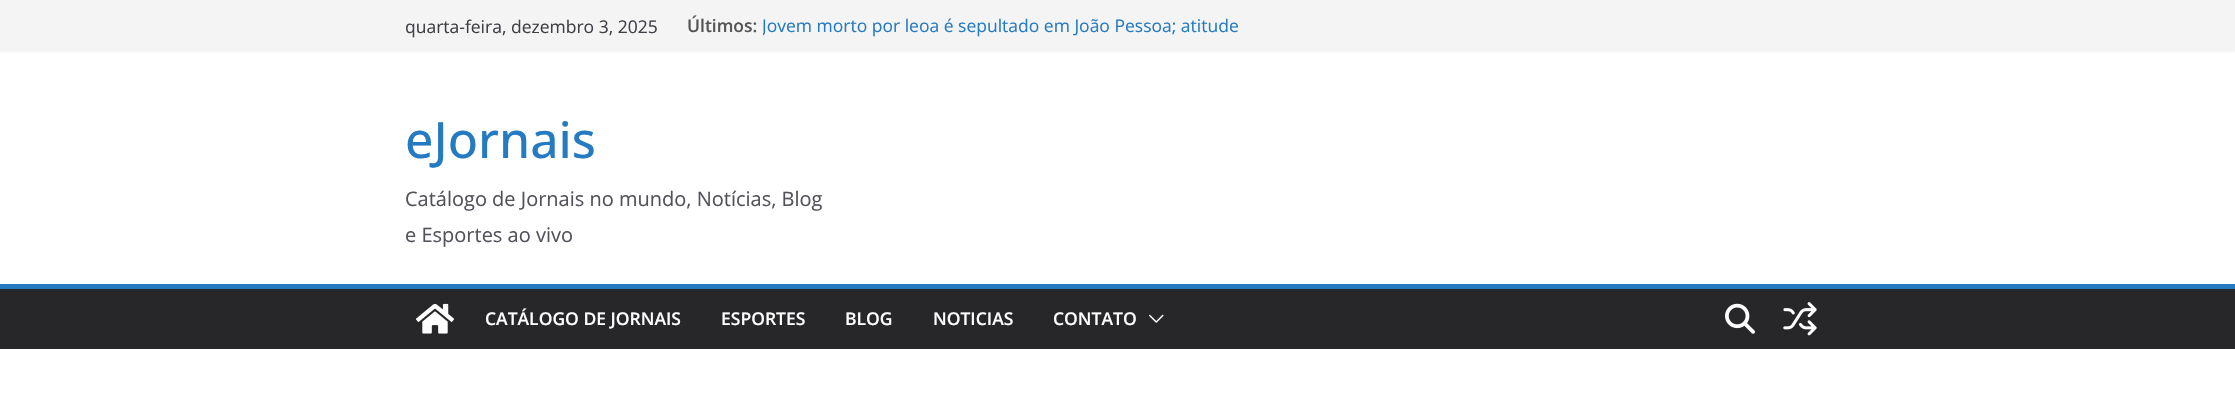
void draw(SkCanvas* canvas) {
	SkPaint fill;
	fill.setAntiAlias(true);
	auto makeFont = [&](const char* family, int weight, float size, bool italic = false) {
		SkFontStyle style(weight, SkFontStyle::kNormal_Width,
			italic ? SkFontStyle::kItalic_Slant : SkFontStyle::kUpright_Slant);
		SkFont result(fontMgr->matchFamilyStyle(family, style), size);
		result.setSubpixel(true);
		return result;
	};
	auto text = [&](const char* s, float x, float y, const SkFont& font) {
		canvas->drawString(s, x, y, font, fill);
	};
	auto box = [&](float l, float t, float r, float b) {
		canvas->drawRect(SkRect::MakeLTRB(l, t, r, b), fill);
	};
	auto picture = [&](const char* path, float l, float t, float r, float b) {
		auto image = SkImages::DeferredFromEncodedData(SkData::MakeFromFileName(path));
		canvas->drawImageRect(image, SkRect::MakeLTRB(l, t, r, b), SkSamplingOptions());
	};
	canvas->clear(0xFFFFFFFF);
	fill.setColor(0x1A000000);
	fill.setMaskFilter(SkMaskFilter::MakeBlur(kNormal_SkBlurStyle, 1));
	canvas->drawRect(SkRect::MakeLTRB(0, 0, 2235, 51), fill);
	fill.setMaskFilter(nullptr);
	fill.setColor(0xFFF4F4F5);
	box(0, 0, 2235, 51);
	fill.setColor(0xFF27272A);
	box(0, 289, 2235, 349);
	fill.setColor(0xFF257BC1);
	box(0, 284, 2235, 289);
	picture("image0.png", 416, 303, 454, 334);
	picture("image1.png", 1149, 314, 1164, 323);
	picture("image2.png", 1725, 303, 1755, 334);
	picture("image3.png", 1783, 302, 1817, 336);
	auto font1 = makeFont("Open Sans", 400, 17.5f);
	fill.setColor(0xFF3F3F46);
	text("quarta-feira, dezembro 3, 2025", 405, 33, font1);
	auto font2 = makeFont("Open Sans", 600, 17.5f);
	fill.setColor(0xFF555555);
	text("Últimos:", 687, 32, font2);
	canvas->save();
	canvas->clipRect(SkRect::MakeLTRB(763, 14, 1263, 39));
	fill.setColor(0xFF257BC1);
	text("Jovem morto por leoa é sepultado em João Pessoa; atitude", 762, 32, font1);
	canvas->restore();
	auto font3 = makeFont("Open Sans", 500, 50);
	text("eJornais", 405, 158, font3);
	auto font4 = makeFont("Open Sans", 400, 20);
	fill.setColor(0xFF52525B);
	text("Catálogo de Jornais no mundo, Notícias, Blog", 405, 206, font4);
	text("e Esportes ao vivo", 405, 242, font4);
	fill.setColor(0xFFFFFFFF);
	text("CATÁLOGO DE JORNAIS", 485, 325, font2);
	text("ESPORTES", 721, 325, font2);
	text("BLOG", 845, 325, font2);
	text("NOTICIAS", 933, 325, font2);
	text("CONTATO", 1053, 325, font2);
}
